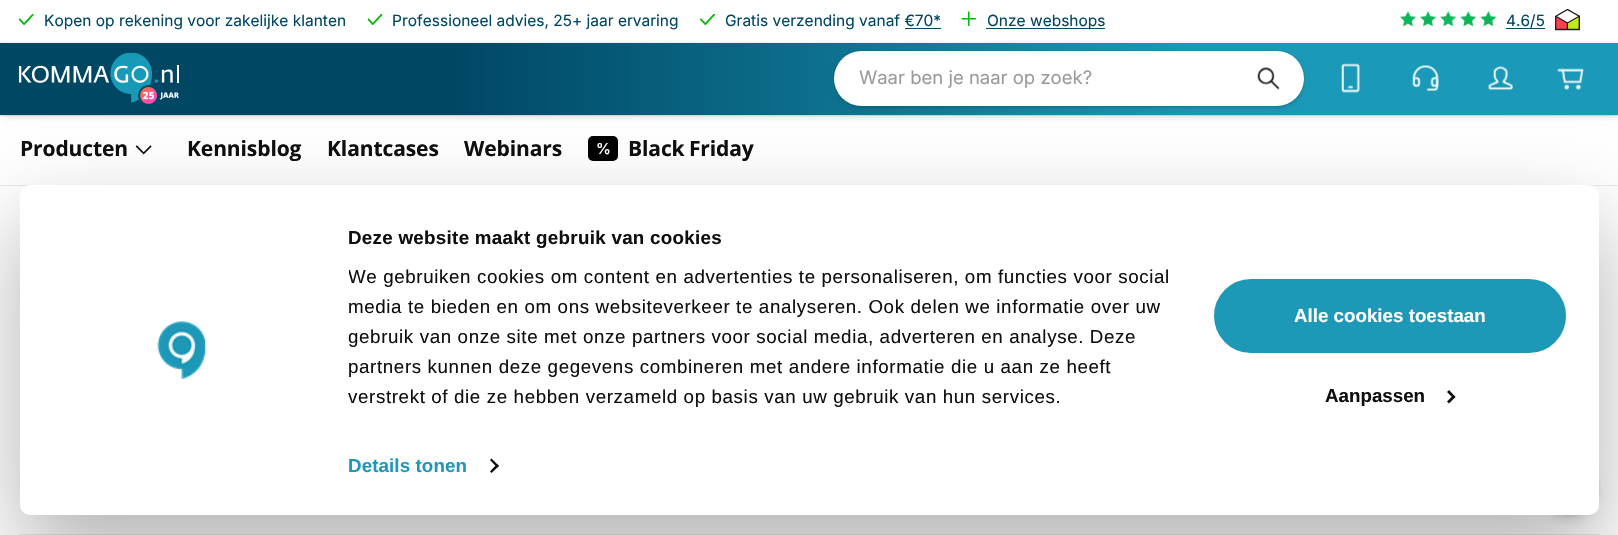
void draw(SkCanvas* canvas) {
	SkPaint fill;
	fill.setAntiAlias(true);
	auto makeFont = [&](const char* family, int weight, float size, bool italic = false) {
		SkFontStyle style(weight, SkFontStyle::kNormal_Width,
			italic ? SkFontStyle::kItalic_Slant : SkFontStyle::kUpright_Slant);
		SkFont result(fontMgr->matchFamilyStyle(family, style), size);
		result.setSubpixel(true);
		return result;
	};
	auto text = [&](const char* s, float x, float y, const SkFont& font) {
		canvas->drawString(s, x, y, font, fill);
	};
	auto spacedText = [&](const char* s, float x, float y, const SkFont& font, const SkPaint& ink, float letter, float word) {
		std::vector<SkGlyphID> glyphs(font.countText(s, strlen(s), SkTextEncoding::kUTF8));
		std::vector<float> xs(glyphs.size());
		font.textToGlyphs(s, strlen(s), SkTextEncoding::kUTF8, glyphs);
		font.getXPos(glyphs, xs, x);
		float extra = 0;
		for (size_t i = 0; i < glyphs.size(); i++) {
			xs[i] += extra;
			extra += letter + word * (glyphs[i] == font.unicharToGlyph(' '));
		}
		canvas->drawTextBlob(SkTextBlob::MakeFromPosHGlyphs(glyphs, xs, y, font), 0, 0, ink);
	};
	auto box = [&](float l, float t, float r, float b) {
		canvas->drawRect(SkRect::MakeLTRB(l, t, r, b), fill);
	};
	auto roundBox = [&](float l, float t, float r, float b, float radius) {
		canvas->drawRoundRect(SkRect::MakeLTRB(l, t, r, b), radius, radius, fill);
	};
	auto picture = [&](const char* path, float l, float t, float r, float b) {
		auto image = SkImages::DeferredFromEncodedData(SkData::MakeFromFileName(path));
		canvas->drawImageRect(image, SkRect::MakeLTRB(l, t, r, b), SkSamplingOptions());
	};
	canvas->clear(0xFFFFFFFF);
	picture("image0.png", 19, 14, 34, 25);
	picture("image1.png", 368, 14, 383, 25);
	picture("image2.png", 700, 14, 715, 25);
	fill.setColor(0xFF004764);
	box(905, 28, 941, 29);
	picture("image3.png", 961, 11, 976, 26);
	box(986, 28, 1105, 29);
	picture("image4.png", 1400, 11, 1497, 27);
	box(1506, 28, 1545, 29);
	picture("image5.png", 1555, 9, 1580, 31);
	fill.setColor(0x17000000);
	fill.setMaskFilter(SkMaskFilter::MakeBlur(kNormal_SkBlurStyle, 3));
	canvas->drawRect(SkRect::MakeLTRB(3, 49, 1618, 118), fill);
	fill.setMaskFilter(nullptr);
	fill.setColor(0x0F000000);
	fill.setMaskFilter(SkMaskFilter::MakeBlur(kNormal_SkBlurStyle, 0.5f));
	canvas->drawRect(SkRect::MakeLTRB(0, 44, 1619, 116), fill);
	fill.setMaskFilter(nullptr);
	fill.setColor(0x26000000);
	fill.setMaskFilter(SkMaskFilter::MakeBlur(kNormal_SkBlurStyle, 1));
	canvas->drawRect(SkRect::MakeLTRB(0, 43, 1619, 115), fill);
	fill.setMaskFilter(nullptr);
	{
		const SkColor colors[] = {0xFF004764, 0xFF1A9AB8};
		const float stops[] = {0.28f, 0.74f};
		const SkPoint ends[] = {{0, 79}, {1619, 79}};
		fill.setShader(SkGradientShader::MakeLinear(ends, colors, stops, 2, SkTileMode::kClamp));
		fill.setAlpha(255);
	}
	box(0, 43, 1618, 115);
	picture("image6.png", 19, 53, 179, 104);
	fill.setShader(nullptr);
	fill.setColor(0x17000000);
	fill.setMaskFilter(SkMaskFilter::MakeBlur(kNormal_SkBlurStyle, 3));
	canvas->drawRoundRect(SkRect::MakeLTRB(836, 58, 1303, 109), 25.5f, 25.5f, fill);
	fill.setMaskFilter(nullptr);
	fill.setColor(0x0F000000);
	fill.setMaskFilter(SkMaskFilter::MakeBlur(kNormal_SkBlurStyle, 0.5f));
	canvas->drawRoundRect(SkRect::MakeLTRB(834, 53, 1304, 108), 27.5f, 27.5f, fill);
	fill.setMaskFilter(nullptr);
	fill.setColor(0x26000000);
	fill.setMaskFilter(SkMaskFilter::MakeBlur(kNormal_SkBlurStyle, 1));
	canvas->drawRoundRect(SkRect::MakeLTRB(834, 51, 1304, 106), 27.5f, 27.5f, fill);
	fill.setMaskFilter(nullptr);
	fill.setColor(0xFFFFFFFF);
	roundBox(834, 51, 1304, 106, 27.5f);
	picture("image7.png", 1257, 67, 1280, 90);
	picture("image8.png", 1341, 63, 1360, 93);
	picture("image9.png", 1412, 65, 1439, 91);
	picture("image10.png", 1487, 66, 1513, 90);
	picture("image11.png", 1557, 68, 1584, 90);
	fill.setColor(0xFFEAEAEA);
	box(0, 185, 1618, 186);
	picture("image12.png", 135, 145, 152, 155);
	fill.setColor(0xFF000000);
	roundBox(588, 136, 618, 161, 5);
	fill.setColor(0xFFEAEAEA);
	box(19, 534, 1600, 535);
	fill.setColor(0x14000000);
	fill.setMaskFilter(SkMaskFilter::MakeBlur(kNormal_SkBlurStyle, 6));
	canvas->drawRoundRect(SkRect::MakeLTRB(1543, 468, 1598, 523), 27.5f, 27.5f, fill);
	fill.setMaskFilter(nullptr);
	fill.setColor(0x0F000000);
	fill.setMaskFilter(SkMaskFilter::MakeBlur(kNormal_SkBlurStyle, 2));
	canvas->drawRoundRect(SkRect::MakeLTRB(1541, 460, 1598, 518), 28.5f, 28.5f, fill);
	fill.setMaskFilter(nullptr);
	fill.setColor(0x26000000);
	fill.setMaskFilter(SkMaskFilter::MakeBlur(kNormal_SkBlurStyle, 1));
	canvas->drawRoundRect(SkRect::MakeLTRB(1540, 456, 1599, 515), 29.5f, 29.5f, fill);
	fill.setMaskFilter(nullptr);
	fill.setColor(0x4D000000);
	fill.setMaskFilter(SkMaskFilter::MakeBlur(kNormal_SkBlurStyle, 44));
	canvas->drawRoundRect(SkRect::MakeLTRB(20, 223, 1599, 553), 10, 10, fill);
	fill.setMaskFilter(nullptr);
	fill.setColor(0xFFFFFFFF);
	roundBox(20, 185, 1599, 515, 10);
	picture("image13.png", 157, 321, 207, 379);
	fill.setColor(0xFF0F0F10);
	canvas->drawPath(SkPathBuilder().moveTo(491.5f, 458.5f).lineTo(499, 466).lineTo(497, 467.5f).lineTo(490, 460).close().detach(), fill);
	canvas->drawPath(SkPathBuilder().moveTo(497, 464).lineTo(499, 466).lineTo(491.5f, 473).lineTo(490, 471.5f).close().detach(), fill);
	fill.setColor(0xFF1D99B7);
	canvas->drawRoundRect(SkRect::MakeLTRB(1212.5f, 277.5f, 1567.5f, 354.5f), 38.5f, 38.5f, fill);
	fill.setStyle(SkPaint::kStroke_Style);
	fill.setStrokeWidth(3);
	fill.setColor(0xFFFFFFFF);
	canvas->drawRoundRect(SkRect::MakeLTRB(1212.5f, 277.5f, 1567.5f, 354.5f), 38.5f, 38.5f, fill);
	fill.setStyle(SkPaint::kFill_Style);
	fill.setColor(0xFF0F0F10);
	canvas->drawPath(SkPathBuilder().moveTo(1449, 390).lineTo(1455.5f, 397).lineTo(1453.5f, 398.5f).lineTo(1447, 392).close().detach(), fill);
	canvas->drawPath(SkPathBuilder().moveTo(1453.5f, 395).lineTo(1455.5f, 397).lineTo(1449, 403.5f).lineTo(1447, 401.5f).close().detach(), fill);
	auto font1 = makeFont("Inter", 400, 15.5f);
	fill.setColor(0xFF004764);
	text("Kopen op rekening voor zakelijke klanten", 44, 26, font1);
	text("Professioneel advies, 25+ jaar ervaring", 392, 26, font1);
	text("Gratis verzending vanaf €70*", 725, 26, font1);
	text("Onze webshops", 987, 26, font1);
	text("4.6/5", 1506, 26, font1);
	auto font2 = makeFont("Inter", 400, 18.5f);
	fill.setColor(0xFF9A9A9B);
	text("Waar ben je naar op zoek?", 859, 84, font2);
	auto font3 = makeFont("Open Sans", 700, 21);
	fill.setColor(0xFF0F0F10);
	spacedText("Producten", 20, 156, font3, fill, -0.1f, 0);
	spacedText("Kennisblog", 187, 156, font3, fill, -0.1f, 0);
	spacedText("Klantcases", 327, 156, font3, fill, -0.1f, 0);
	spacedText("Webinars", 464, 156, font3, fill, -0.1f, 0);
	auto font4 = makeFont("Inter", 500, 15);
	fill.setColor(0xFFFFFFFF);
	spacedText("%", 596, 154, font4, fill, -0.1f, 0);
	fill.setColor(0xFF0F0F10);
	spacedText("Black Friday", 628, 156, font3, fill, -0.1f, -1);
	auto font5 = makeFont("Liberation Sans", 700, 18.75f);
	spacedText("Deze website maakt gebruik van cookies", 348, 244, font5, fill, 0.3f, 0);
	canvas->save();
	canvas->clipRect(SkRect::MakeLTRB(349, 223, 1204, 411));
	auto font6 = makeFont("Liberation Sans", 400, 18.75f);
	spacedText("We gebruiken cookies om content en advertenties te personaliseren, om functies voor social", 348, 283, font6, fill, 0.62f, 0);
	canvas->restore();
	spacedText("media te bieden en om ons websiteverkeer te analyseren. Ook delen we informatie over uw", 348, 313, font6, fill, 0.62f, 0);
	spacedText("gebruik van onze site met onze partners voor social media, adverteren en analyse. Deze", 348, 343, font6, fill, 0.62f, 0);
	spacedText("partners kunnen deze gegevens combineren met andere informatie die u aan ze heeft", 348, 373, font6, fill, 0.62f, 0);
	spacedText("verstrekt of die ze hebben verzameld op basis van uw gebruik van hun services.", 348, 403, font6, fill, 0.62f, 0);
	fill.setColor(0xFF1D99B7);
	spacedText("Details tonen", 348, 472, font5, fill, 0.1f, 0);
	fill.setColor(0xFFFFFFFF);
	text("Alle cookies toestaan", 1294, 322, font5);
	fill.setColor(0xFF0F0F10);
	text("Aanpassen", 1325, 402, font5);
}
